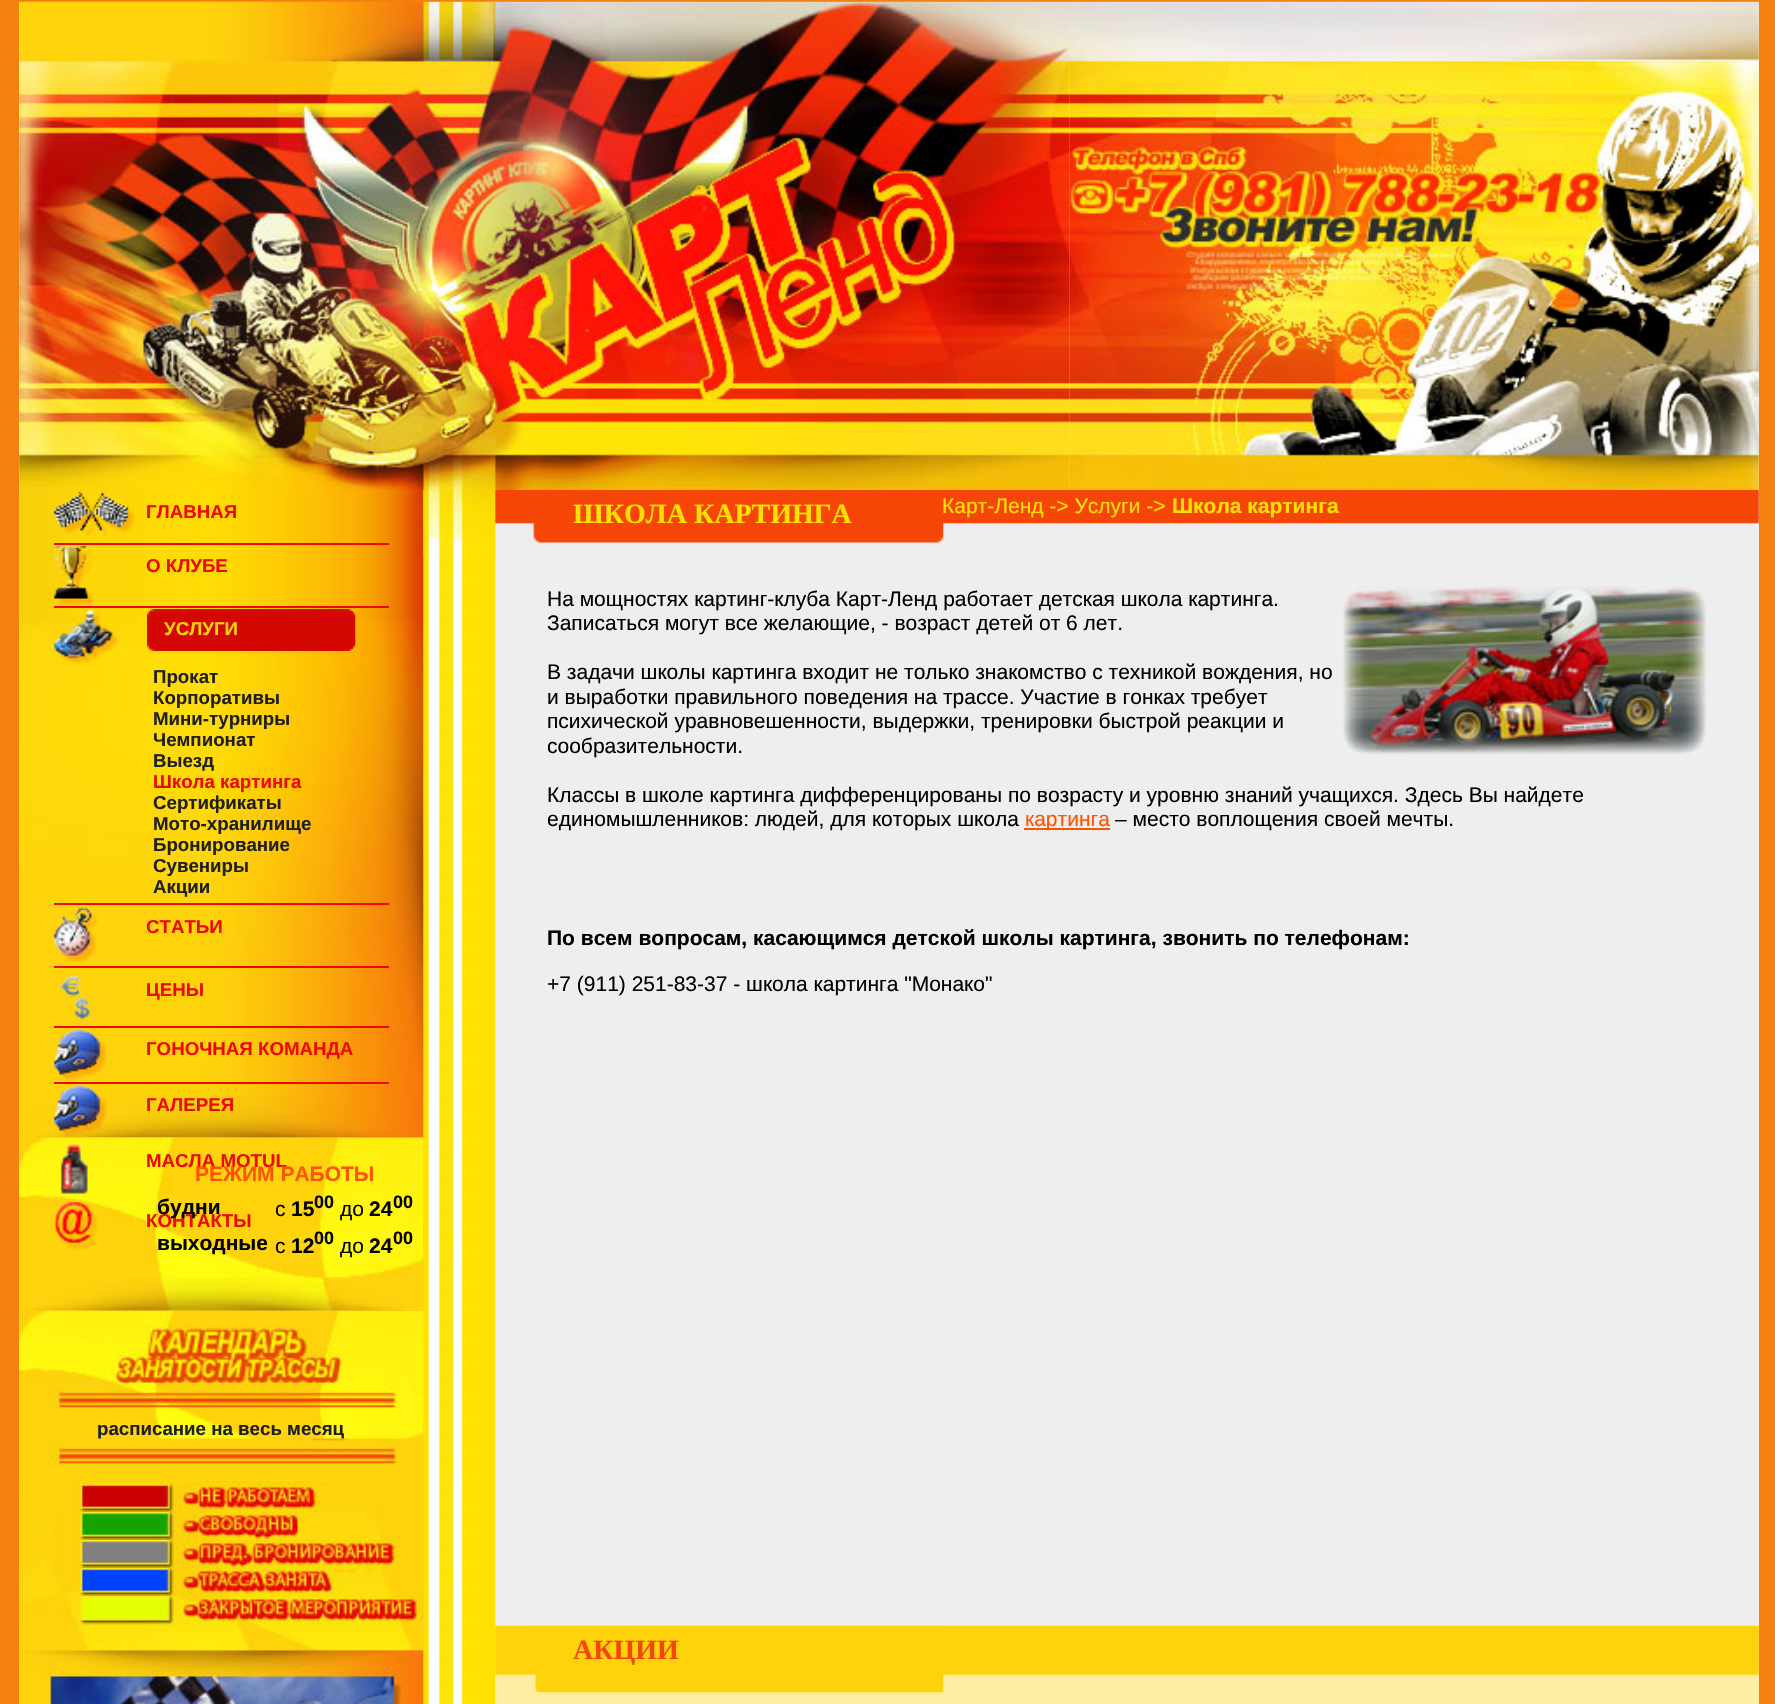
void draw(SkCanvas* canvas) {
	SkPaint fill;
	fill.setAntiAlias(true);
	auto makeFont = [&](const char* family, int weight, float size, bool italic = false) {
		SkFontStyle style(weight, SkFontStyle::kNormal_Width,
			italic ? SkFontStyle::kItalic_Slant : SkFontStyle::kUpright_Slant);
		SkFont result(fontMgr->matchFamilyStyle(family, style), size);
		result.setSubpixel(true);
		return result;
	};
	auto text = [&](const char* s, float x, float y, const SkFont& font) {
		canvas->drawString(s, x, y, font, fill);
	};
	auto box = [&](float l, float t, float r, float b) {
		canvas->drawRect(SkRect::MakeLTRB(l, t, r, b), fill);
	};
	auto picture = [&](const char* path, float l, float t, float r, float b) {
		auto image = SkImages::DeferredFromEncodedData(SkData::MakeFromFileName(path));
		canvas->drawImageRect(image, SkRect::MakeLTRB(l, t, r, b), SkSamplingOptions());
	};
	canvas->clear(0xFFF3800F);
	fill.setColor(0xFFEEEEEE);
	box(19, 2, 1759, 1704);
	picture("image0.png", 19, 1, 1070, 490);
	picture("image1.png", 1069, 1, 1759, 490);
	picture("image2.png", 19, 490, 424, 1704);
	picture("image3.png", 19, 490, 424, 1138);
	fill.setColor(0xFFEC0A00);
	box(54, 543, 389, 545);
	picture("image4.png", 54, 491, 135, 536);
	box(54, 606, 389, 608);
	picture("image5.png", 54, 546, 95, 606);
	box(54, 903, 389, 905);
	picture("image6.png", 54, 609, 119, 665);
	picture("image7.png", 147, 609, 356, 651);
	box(54, 966, 389, 968);
	picture("image8.png", 54, 907, 98, 963);
	box(54, 1026, 389, 1028);
	picture("image9.png", 60, 976, 90, 1019);
	box(54, 1082, 389, 1084);
	picture("image10.png", 54, 1029, 107, 1081);
	picture("image11.png", 54, 1085, 107, 1137);
	picture("image14.png", 19, 1137, 424, 1311);
	picture("image12.png", 60, 1144, 88, 1194);
	picture("image13.png", 54, 1200, 98, 1250);
	picture("image16.png", 19, 1310, 424, 1651);
	picture("image15.png", 25, 1278, 405, 1311);
	picture("image25.png", 19, 1650, 424, 1704);
	picture("image26.png", 423, 490, 496, 1704);
	picture("image17.png", 19, 1310, 424, 1418);
	picture("image20.png", 19, 1512, 424, 1540);
	picture("image21.png", 19, 1540, 424, 1568);
	picture("image22.png", 19, 1568, 424, 1596);
	picture("image23.png", 19, 1596, 424, 1626);
	picture("image24.png", 19, 1626, 424, 1651);
	picture("image28.png", 495, 490, 1759, 543);
	picture("image29.png", 495, 490, 944, 543);
	picture("image27.png", 423, 490, 496, 555);
	picture("image30.png", 1342, 586, 1707, 755);
	fill.setColor(0xFFFF5300);
	box(1024, 828, 1110, 830);
	fill.setColor(0xFFFFEEA1);
	box(495, 1626, 1759, 1704);
	picture("image31.png", 495, 1625, 1759, 1676);
	picture("image32.png", 533, 1625, 944, 1693);
	auto font1 = makeFont("Liberation Sans", 700, 18.7f);
	fill.setColor(0xFFEC0A00);
	text("ГЛАВНАЯ", 146, 518, font1);
	text("О КЛУБЕ", 146, 572, font1);
	fill.setColor(0xFFFED30C);
	text("УСЛУГИ", 164, 635, font1);
	fill.setColor(0xFF202020);
	text("Прокат", 153, 683, font1);
	text("Корпоративы", 153, 704, font1);
	text("Мини-турниры", 153, 725, font1);
	text("Чемпионат", 153, 746, font1);
	text("Выезд", 153, 767, font1);
	fill.setColor(0xFFEC0A00);
	text("Школа картинга", 153, 788, font1);
	fill.setColor(0xFF202020);
	text("Сертификаты", 153, 809, font1);
	text("Мото-хранилище", 153, 830, font1);
	text("Бронирование", 153, 851, font1);
	text("Сувениры", 153, 872, font1);
	text("Акции", 153, 893, font1);
	fill.setColor(0xFFEC0A00);
	text("СТАТЬИ", 146, 933, font1);
	text("ЦЕНЫ", 146, 996, font1);
	text("ГОНОЧНАЯ КОМАНДА", 146, 1055, font1);
	text("ГАЛЕРЕЯ", 146, 1111, font1);
	text("МАСЛА MOTUL", 146, 1167, font1);
	text("КОНТАКТЫ", 146, 1227, font1);
	auto font2 = makeFont("Liberation Sans", 700, 21);
	fill.setColor(0xFFFF5300);
	text("РЕЖИМ РАБОТЫ", 195, 1181, font2);
	fill.setColor(0xFF000000);
	text("будни", 157, 1214, font2);
	auto font3 = makeFont("Liberation Sans", 400, 21);
	text("с", 275, 1216, font3);
	text("15", 291, 1216, font2);
	auto font4 = makeFont("Liberation Sans", 700, 18);
	text("00", 314, 1208, font4);
	text("до", 340, 1216, font3);
	text("24", 369, 1216, font2);
	text("00", 393, 1208, font4);
	text("выходные", 157, 1250, font2);
	text("с", 275, 1253, font3);
	text("12", 291, 1253, font2);
	text("00", 314, 1244, font4);
	text("до", 340, 1253, font3);
	text("24", 369, 1253, font2);
	text("00", 393, 1244, font4);
	fill.setColor(0xFF202020);
	text("расписание на весь месяц", 97, 1435, font1);
	picture("image18.png", 19, 1438, 424, 1481);
	picture("image19.png", 19, 1480, 424, 1512);
	auto font5 = makeFont("Liberation Serif", 700, 28);
	fill.setColor(0xFFFFE100);
	text("ШКОЛА КАРТИНГА", 573, 523, font5);
	text("Карт-Ленд -> Услуги ->", 942, 513, font3);
	text("Школа картинга", 1172, 513, font2);
	fill.setColor(0xFF000000);
	text("На мощностях картинг-клуба Карт-Ленд работает детская школа картинга.", 547, 606, font3);
	text("Записаться могут все желающие, - возраст детей от 6 лет.", 547, 630, font3);
	text("В задачи школы картинга входит не только знакомство с техникой вождения, но", 547, 679, font3);
	text("и выработки правильного поведения на трассе. Участие в гонках требует", 547, 704, font3);
	text("психической уравновешенности, выдержки, тренировки быстрой реакции и", 547, 728, font3);
	text("сообразительности.", 547, 753, font3);
	text("Классы в школе картинга дифференцированы по возрасту и уровню знаний учащихся. Здесь Вы найдете", 547, 802, font3);
	text("единомышленников: людей, для которых школа", 547, 826, font3);
	fill.setColor(0xFFFF5300);
	text("картинга", 1025, 826, font3);
	fill.setColor(0xFF000000);
	text("– место воплощения своей мечты.", 1115, 826, font3);
	text("По всем вопросам, касающимся детской школы картинга, звонить по телефонам:", 547, 945, font2);
	text("+7 (911) 251-83-37 - школа картинга \"Монако\"", 547, 991, font3);
	fill.setColor(0xFFF54608);
	text("АКЦИИ", 573, 1659, font5);
}
